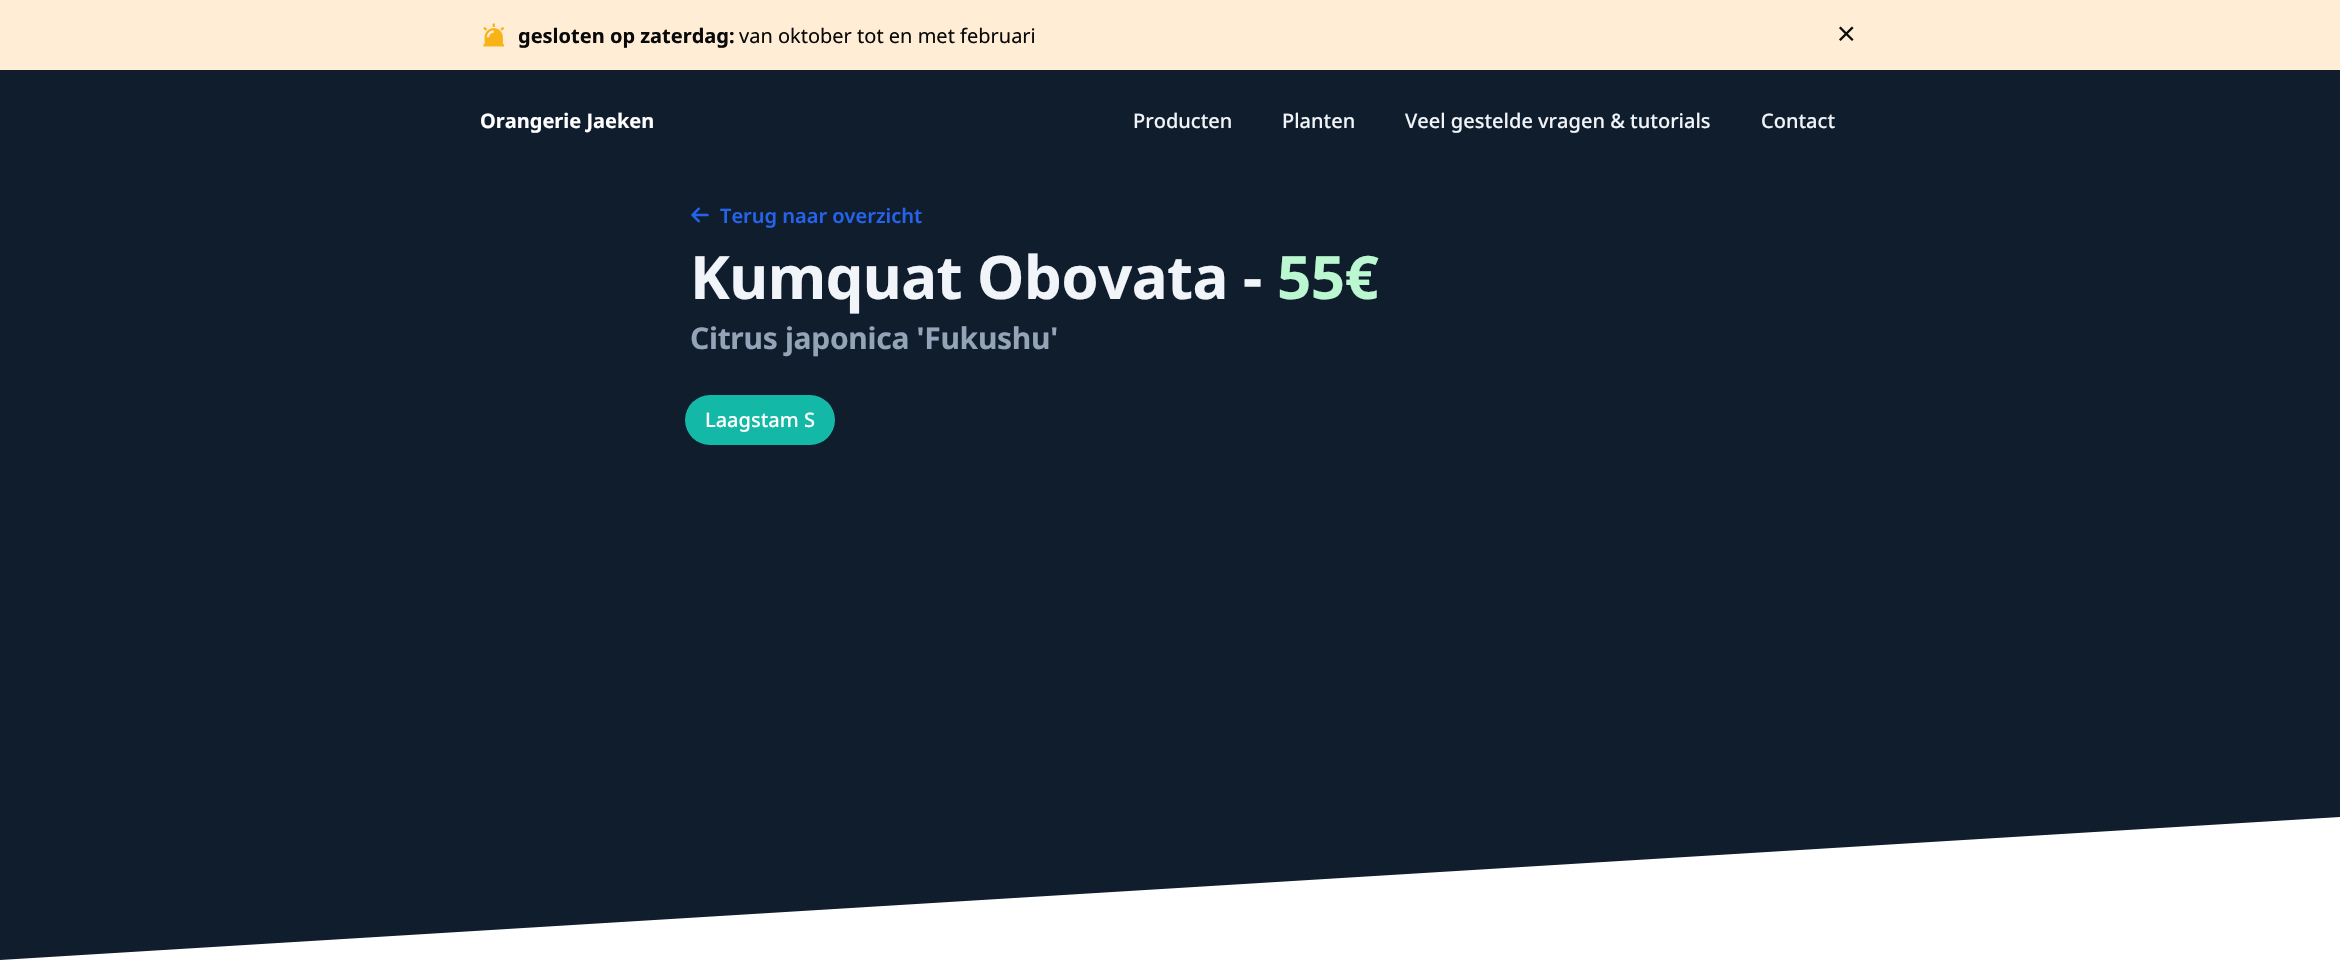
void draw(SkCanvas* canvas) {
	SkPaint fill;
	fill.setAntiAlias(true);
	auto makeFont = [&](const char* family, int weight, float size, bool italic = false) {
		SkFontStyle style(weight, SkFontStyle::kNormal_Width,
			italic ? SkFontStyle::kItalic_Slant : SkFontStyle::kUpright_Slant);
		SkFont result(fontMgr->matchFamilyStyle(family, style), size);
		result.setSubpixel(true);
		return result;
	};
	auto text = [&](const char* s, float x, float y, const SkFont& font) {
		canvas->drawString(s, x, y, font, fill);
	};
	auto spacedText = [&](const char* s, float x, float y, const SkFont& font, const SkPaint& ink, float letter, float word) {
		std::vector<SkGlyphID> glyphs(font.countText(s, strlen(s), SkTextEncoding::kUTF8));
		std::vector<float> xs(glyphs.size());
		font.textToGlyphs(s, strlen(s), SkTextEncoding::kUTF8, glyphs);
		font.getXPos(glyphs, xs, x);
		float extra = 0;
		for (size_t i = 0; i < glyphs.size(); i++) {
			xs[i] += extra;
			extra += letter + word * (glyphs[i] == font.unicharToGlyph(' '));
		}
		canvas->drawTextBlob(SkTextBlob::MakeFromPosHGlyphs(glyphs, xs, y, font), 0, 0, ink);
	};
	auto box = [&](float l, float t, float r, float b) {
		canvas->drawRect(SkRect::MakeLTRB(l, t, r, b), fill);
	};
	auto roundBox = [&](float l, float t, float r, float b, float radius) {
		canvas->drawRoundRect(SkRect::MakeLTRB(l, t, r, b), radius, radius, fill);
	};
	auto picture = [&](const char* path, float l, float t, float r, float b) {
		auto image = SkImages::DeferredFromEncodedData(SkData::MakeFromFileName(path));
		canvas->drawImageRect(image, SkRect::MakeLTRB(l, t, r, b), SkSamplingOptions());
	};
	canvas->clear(0xFFFFFFFF);
	fill.setColor(0xFF101D2D);
	canvas->drawPath(SkPathBuilder().moveTo(0, 0).lineTo(0, 960).lineTo(2340, 817).lineTo(2340, 0).close().detach(), fill);
	fill.setColor(0xFFFFEDD5);
	box(0, 0, 2340, 70);
	picture("image0.png", 483, 23, 505, 47);
	picture("image1.png", 1839, 26, 1854, 41);
	picture("image2.png", 691, 207, 709, 223);
	fill.setColor(0xFF14B8A6);
	roundBox(685, 395, 835, 445, 25);
	auto font1 = makeFont("Noto Sans", 700, 20);
	fill.setColor(0xFF0A0A0A);
	text("gesloten op zaterdag:", 518, 43, font1);
	auto font2 = makeFont("Noto Sans", 400, 20);
	text("van oktober tot en met februari", 739, 43, font2);
	fill.setColor(0xFFFFFFFF);
	text("Orangerie Jaeken", 480, 128, font1);
	auto font3 = makeFont("Noto Sans", 500, 20);
	fill.setColor(0xFFF1F5F9);
	text("Producten", 1133, 128, font3);
	text("Planten", 1282, 128, font3);
	text("Veel gestelde vragen & tutorials", 1405, 128, font3);
	text("Contact", 1761, 128, font3);
	auto font4 = makeFont("Noto Sans", 600, 20);
	fill.setColor(0xFF2563EB);
	text("Terug naar overzicht", 720, 223, font4);
	auto font5 = makeFont("Noto Sans", 700, 60);
	fill.setColor(0xFFF1F5F9);
	spacedText("Kumquat Obovata -", 690, 299, font5, fill, -0.6f, 0);
	fill.setColor(0xFFBBF7D0);
	spacedText("55€", 1277, 299, font5, fill, -0.6f, 0);
	auto font6 = makeFont("Noto Sans", 700, 30);
	fill.setColor(0xFF94A3B8);
	spacedText("Citrus japonica 'Fukushu'", 690, 349, font6, fill, -0.3f, 0);
	fill.setColor(0xFFFFFFFF);
	text("Laagstam S", 705, 427, font3);
}
